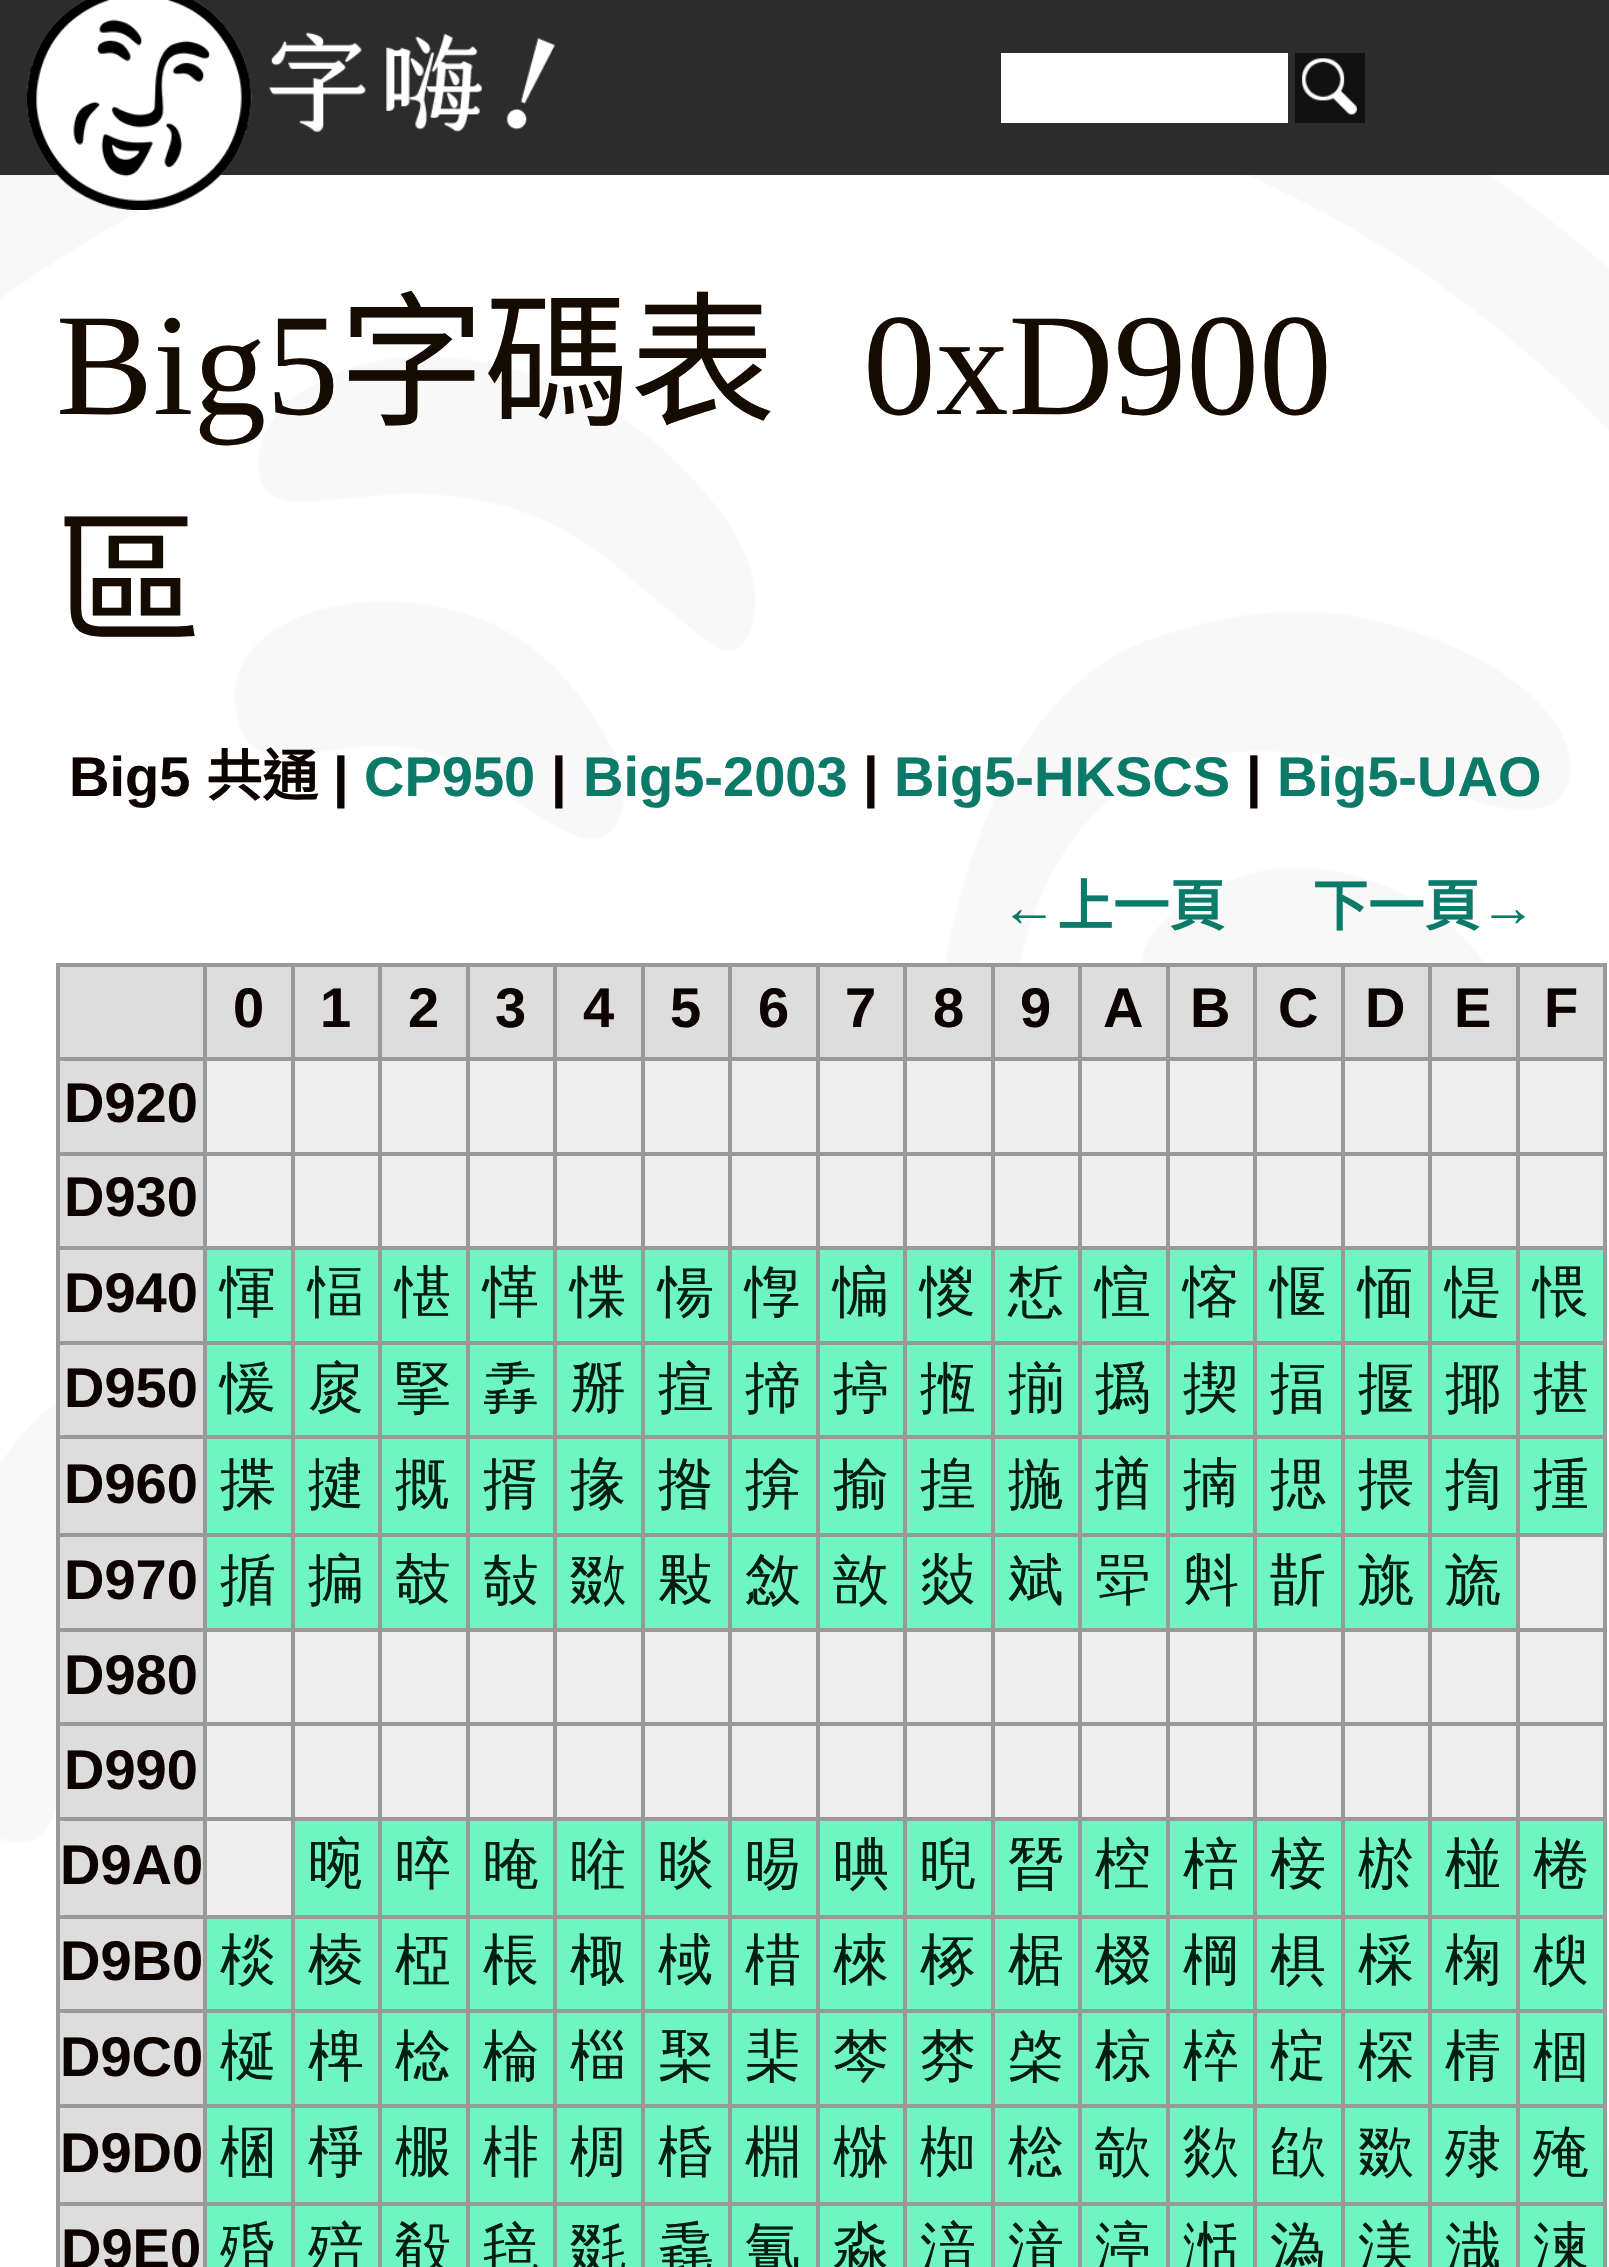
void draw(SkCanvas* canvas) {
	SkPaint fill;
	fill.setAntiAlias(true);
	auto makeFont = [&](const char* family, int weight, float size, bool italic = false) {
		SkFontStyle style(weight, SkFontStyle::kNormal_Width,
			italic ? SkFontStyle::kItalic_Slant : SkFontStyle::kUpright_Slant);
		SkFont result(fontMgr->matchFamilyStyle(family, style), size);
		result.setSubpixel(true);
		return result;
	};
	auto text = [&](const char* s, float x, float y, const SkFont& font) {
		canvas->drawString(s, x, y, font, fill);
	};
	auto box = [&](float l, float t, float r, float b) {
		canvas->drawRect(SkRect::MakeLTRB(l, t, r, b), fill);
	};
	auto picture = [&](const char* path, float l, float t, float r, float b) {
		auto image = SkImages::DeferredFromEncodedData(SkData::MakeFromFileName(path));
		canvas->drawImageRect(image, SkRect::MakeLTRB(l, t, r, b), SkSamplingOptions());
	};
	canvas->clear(0xFFFFFFFF);
	picture("image0.png", 0, 175, 1609, 2267);
	fill.setColor(0xFF2C2C2C);
	box(0, 0, 1609, 175);
	picture("image1.png", 26, 0, 556, 210);
	fill.setColor(0xFFFFFFFF);
	box(1001, 53, 1288, 123);
	fill.setColor(0xFF111111);
	box(1295, 53, 1365, 123);
	picture("image2.png", 1301, 58, 1357, 115);
	fill.setColor(0xFF999999);
	box(56, 963, 1607, 967);
	box(1603, 963, 1607, 2267);
	box(56, 963, 60, 2267);
	fill.setColor(0xFFDDDDDD);
	box(60, 967, 203, 1057);
	box(207, 967, 291, 1057);
	fill.setColor(0xFF999999);
	box(1516, 1057, 1607, 1061);
	box(1516, 1152, 1607, 1156);
	box(1516, 1246, 1607, 1250);
	box(1516, 1341, 1607, 1345);
	box(1516, 1435, 1607, 1439);
	box(1516, 1533, 1607, 1537);
	box(1516, 1628, 1607, 1632);
	box(1516, 1722, 1607, 1726);
	box(1516, 1817, 1607, 1821);
	box(1516, 1915, 1607, 1919);
	box(1516, 2009, 1607, 2013);
	box(1516, 2104, 1607, 2108);
	box(1516, 2202, 1607, 2206);
	box(1516, 2202, 1520, 2267);
	box(1428, 2202, 1519, 2206);
	box(1516, 2104, 1520, 2205);
	box(1428, 2104, 1519, 2108);
	box(1516, 2009, 1520, 2107);
	box(1428, 2009, 1519, 2013);
	box(1516, 1915, 1520, 2013);
	box(1428, 1915, 1519, 1919);
	box(1516, 1817, 1520, 1918);
	box(1428, 1817, 1519, 1821);
	box(1516, 1722, 1520, 1820);
	box(1428, 1722, 1519, 1726);
	box(1516, 1628, 1520, 1726);
	box(1428, 1628, 1519, 1632);
	box(1516, 1533, 1520, 1631);
	box(1428, 1533, 1519, 1537);
	box(1516, 1435, 1520, 1537);
	box(1428, 1435, 1519, 1439);
	box(1516, 1341, 1520, 1439);
	box(1428, 1341, 1519, 1345);
	box(1516, 1246, 1520, 1344);
	box(1428, 1246, 1519, 1250);
	box(1516, 1152, 1520, 1250);
	box(1428, 1152, 1519, 1156);
	box(1516, 1057, 1520, 1155);
	box(1428, 1057, 1519, 1061);
	box(1428, 2202, 1432, 2267);
	box(1341, 2202, 1432, 2206);
	box(1428, 2104, 1432, 2205);
	box(1341, 2104, 1432, 2108);
	box(1428, 2009, 1432, 2107);
	box(1341, 2009, 1432, 2013);
	box(1428, 1915, 1432, 2013);
	box(1341, 1915, 1432, 1919);
	box(1428, 1817, 1432, 1918);
	box(1341, 1817, 1432, 1821);
	box(1428, 1722, 1432, 1820);
	box(1341, 1722, 1432, 1726);
	box(1428, 1628, 1432, 1726);
	box(1341, 1628, 1432, 1632);
	box(1428, 1533, 1432, 1631);
	box(1341, 1533, 1432, 1537);
	box(1428, 1435, 1432, 1537);
	box(1341, 1435, 1432, 1439);
	box(1428, 1341, 1432, 1439);
	box(1341, 1341, 1432, 1345);
	box(1428, 1246, 1432, 1344);
	box(1341, 1246, 1432, 1250);
	box(1428, 1152, 1432, 1250);
	box(1341, 1152, 1432, 1156);
	box(1428, 1057, 1432, 1155);
	box(1341, 1057, 1432, 1061);
	box(1341, 2202, 1345, 2267);
	box(1253, 2202, 1344, 2206);
	box(1341, 2104, 1345, 2205);
	box(1253, 2104, 1344, 2108);
	box(1341, 2009, 1345, 2107);
	box(1253, 2009, 1344, 2013);
	box(1341, 1915, 1345, 2013);
	box(1253, 1915, 1344, 1919);
	box(1341, 1817, 1345, 1918);
	box(1253, 1817, 1344, 1821);
	box(1341, 1722, 1345, 1820);
	box(1253, 1722, 1344, 1726);
	box(1341, 1628, 1345, 1726);
	box(1253, 1628, 1344, 1632);
	box(1341, 1533, 1345, 1631);
	box(1253, 1533, 1344, 1537);
	box(1341, 1435, 1345, 1537);
	box(1253, 1435, 1344, 1439);
	box(1341, 1341, 1345, 1439);
	box(1253, 1341, 1344, 1345);
	box(1341, 1246, 1345, 1344);
	box(1253, 1246, 1344, 1250);
	box(1341, 1152, 1345, 1250);
	box(1253, 1152, 1344, 1156);
	box(1341, 1057, 1345, 1155);
	box(1253, 1057, 1344, 1061);
	box(1253, 2202, 1257, 2267);
	box(1166, 2202, 1257, 2206);
	box(1253, 2104, 1257, 2205);
	box(1166, 2104, 1257, 2108);
	box(1253, 2009, 1257, 2107);
	box(1166, 2009, 1257, 2013);
	box(1253, 1915, 1257, 2013);
	box(1166, 1915, 1257, 1919);
	box(1253, 1817, 1257, 1918);
	box(1166, 1817, 1257, 1821);
	box(1253, 1722, 1257, 1820);
	box(1166, 1722, 1257, 1726);
	box(1253, 1628, 1257, 1726);
	box(1166, 1628, 1257, 1632);
	box(1253, 1533, 1257, 1631);
	box(1166, 1533, 1257, 1537);
	box(1253, 1435, 1257, 1537);
	box(1166, 1435, 1257, 1439);
	box(1253, 1341, 1257, 1439);
	box(1166, 1341, 1257, 1345);
	box(1253, 1246, 1257, 1344);
	box(1166, 1246, 1257, 1250);
	box(1253, 1152, 1257, 1250);
	box(1166, 1152, 1257, 1156);
	box(1253, 1057, 1257, 1155);
	box(1166, 1057, 1257, 1061);
	box(1166, 2202, 1170, 2267);
	box(1078, 2202, 1169, 2206);
	box(1166, 2104, 1170, 2205);
	box(1078, 2104, 1169, 2108);
	box(1166, 2009, 1170, 2107);
	box(1078, 2009, 1169, 2013);
	box(1166, 1915, 1170, 2013);
	box(1078, 1915, 1169, 1919);
	box(1166, 1817, 1170, 1918);
	box(1078, 1817, 1169, 1821);
	box(1166, 1722, 1170, 1820);
	box(1078, 1722, 1169, 1726);
	box(1166, 1628, 1170, 1726);
	box(1078, 1628, 1169, 1632);
	box(1166, 1533, 1170, 1631);
	box(1078, 1533, 1169, 1537);
	box(1166, 1435, 1170, 1537);
	box(1078, 1435, 1169, 1439);
	box(1166, 1341, 1170, 1439);
	box(1078, 1341, 1169, 1345);
	box(1166, 1246, 1170, 1344);
	box(1078, 1246, 1169, 1250);
	box(1166, 1152, 1170, 1250);
	box(1078, 1152, 1169, 1156);
	box(1166, 1057, 1170, 1155);
	box(1078, 1057, 1169, 1061);
	box(1078, 2202, 1082, 2267);
	box(991, 2202, 1082, 2206);
	box(1078, 2104, 1082, 2205);
	box(991, 2104, 1082, 2108);
	box(1078, 2009, 1082, 2107);
	box(991, 2009, 1082, 2013);
	box(1078, 1915, 1082, 2013);
	box(991, 1915, 1082, 1919);
	box(1078, 1817, 1082, 1918);
	box(991, 1817, 1082, 1821);
	box(1078, 1722, 1082, 1820);
	box(991, 1722, 1082, 1726);
	box(1078, 1628, 1082, 1726);
	box(991, 1628, 1082, 1632);
	box(1078, 1533, 1082, 1631);
	box(991, 1533, 1082, 1537);
	box(1078, 1435, 1082, 1537);
	box(991, 1435, 1082, 1439);
	box(1078, 1341, 1082, 1439);
	box(991, 1341, 1082, 1345);
	box(1078, 1246, 1082, 1344);
	box(991, 1246, 1082, 1250);
	box(1078, 1152, 1082, 1250);
	box(991, 1152, 1082, 1156);
	box(1078, 1057, 1082, 1155);
	box(991, 1057, 1082, 1061);
	box(991, 2202, 995, 2267);
	box(903, 2202, 994, 2206);
	box(991, 2104, 995, 2205);
	box(903, 2104, 994, 2108);
	box(991, 2009, 995, 2107);
	box(903, 2009, 994, 2013);
	box(991, 1915, 995, 2013);
	box(903, 1915, 994, 1919);
	box(991, 1817, 995, 1918);
	box(903, 1817, 994, 1821);
	box(991, 1722, 995, 1820);
	box(903, 1722, 994, 1726);
	box(991, 1628, 995, 1726);
	box(903, 1628, 994, 1632);
	box(991, 1533, 995, 1631);
	box(903, 1533, 994, 1537);
	box(991, 1435, 995, 1537);
	box(903, 1435, 994, 1439);
	box(991, 1341, 995, 1439);
	box(903, 1341, 994, 1345);
	box(991, 1246, 995, 1344);
	box(903, 1246, 994, 1250);
	box(991, 1152, 995, 1250);
	box(903, 1152, 994, 1156);
	box(991, 1057, 995, 1155);
	box(903, 1057, 994, 1061);
	box(903, 2202, 907, 2267);
	box(816, 2202, 907, 2206);
	box(903, 2104, 907, 2205);
	box(816, 2104, 907, 2108);
	box(903, 2009, 907, 2107);
	box(816, 2009, 907, 2013);
	box(903, 1915, 907, 2013);
	box(816, 1915, 907, 1919);
	box(903, 1817, 907, 1918);
	box(816, 1817, 907, 1821);
	box(903, 1722, 907, 1820);
	box(816, 1722, 907, 1726);
	box(903, 1628, 907, 1726);
	box(816, 1628, 907, 1632);
	box(903, 1533, 907, 1631);
	box(816, 1533, 907, 1537);
	box(903, 1435, 907, 1537);
	box(816, 1435, 907, 1439);
	box(903, 1341, 907, 1439);
	box(816, 1341, 907, 1345);
	box(903, 1246, 907, 1344);
	box(816, 1246, 907, 1250);
	box(903, 1152, 907, 1250);
	box(816, 1152, 907, 1156);
	box(903, 1057, 907, 1155);
	box(816, 1057, 907, 1061);
	box(816, 2202, 820, 2267);
	box(728, 2202, 819, 2206);
	box(816, 2104, 820, 2205);
	box(728, 2104, 819, 2108);
	box(816, 2009, 820, 2107);
	box(728, 2009, 819, 2013);
	box(816, 1915, 820, 2013);
	box(728, 1915, 819, 1919);
	box(816, 1817, 820, 1918);
	box(728, 1817, 819, 1821);
	box(816, 1722, 820, 1820);
	box(728, 1722, 819, 1726);
	box(816, 1628, 820, 1726);
	box(728, 1628, 819, 1632);
	box(816, 1533, 820, 1631);
	box(728, 1533, 819, 1537);
	box(816, 1435, 820, 1537);
	box(728, 1435, 819, 1439);
	box(816, 1341, 820, 1439);
	box(728, 1341, 819, 1345);
	box(816, 1246, 820, 1344);
	box(728, 1246, 819, 1250);
	box(816, 1152, 820, 1250);
	box(728, 1152, 819, 1156);
	box(816, 1057, 820, 1155);
	box(728, 1057, 819, 1061);
	box(728, 2202, 732, 2267);
	box(641, 2202, 732, 2206);
	box(728, 2104, 732, 2205);
	box(641, 2104, 732, 2108);
	box(728, 2009, 732, 2107);
	box(641, 2009, 732, 2013);
	box(728, 1915, 732, 2013);
	box(641, 1915, 732, 1919);
	box(728, 1817, 732, 1918);
	box(641, 1817, 732, 1821);
	box(728, 1722, 732, 1820);
	box(641, 1722, 732, 1726);
	box(728, 1628, 732, 1726);
	box(641, 1628, 732, 1632);
	box(728, 1533, 732, 1631);
	box(641, 1533, 732, 1537);
	box(728, 1435, 732, 1537);
	box(641, 1435, 732, 1439);
	box(728, 1341, 732, 1439);
	box(641, 1341, 732, 1345);
	box(728, 1246, 732, 1344);
	box(641, 1246, 732, 1250);
	box(728, 1152, 732, 1250);
	box(641, 1152, 732, 1156);
	box(728, 1057, 732, 1155);
	box(641, 1057, 732, 1061);
	box(641, 2202, 645, 2267);
	box(553, 2202, 644, 2206);
	box(641, 2104, 645, 2205);
	box(553, 2104, 644, 2108);
	box(641, 2009, 645, 2107);
	box(553, 2009, 644, 2013);
	box(641, 1915, 645, 2013);
	box(553, 1915, 644, 1919);
	box(641, 1817, 645, 1918);
	box(553, 1817, 644, 1821);
	box(641, 1722, 645, 1820);
	box(553, 1722, 644, 1726);
	box(641, 1628, 645, 1726);
	box(553, 1628, 644, 1632);
	box(641, 1533, 645, 1631);
	box(553, 1533, 644, 1537);
	box(641, 1435, 645, 1537);
	box(553, 1435, 644, 1439);
	box(641, 1341, 645, 1439);
	box(553, 1341, 644, 1345);
	box(641, 1246, 645, 1344);
	box(553, 1246, 644, 1250);
	box(641, 1152, 645, 1250);
	box(553, 1152, 644, 1156);
	box(641, 1057, 645, 1155);
	box(553, 1057, 644, 1061);
	box(553, 2202, 557, 2267);
	box(466, 2202, 557, 2206);
	box(553, 2104, 557, 2205);
	box(466, 2104, 557, 2108);
	box(553, 2009, 557, 2107);
	box(466, 2009, 557, 2013);
	box(553, 1915, 557, 2013);
	box(466, 1915, 557, 1919);
	box(553, 1817, 557, 1918);
	box(466, 1817, 557, 1821);
	box(553, 1722, 557, 1820);
	box(466, 1722, 557, 1726);
	box(553, 1628, 557, 1726);
	box(466, 1628, 557, 1632);
	box(553, 1533, 557, 1631);
	box(466, 1533, 557, 1537);
	box(553, 1435, 557, 1537);
	box(466, 1435, 557, 1439);
	box(553, 1341, 557, 1439);
	box(466, 1341, 557, 1345);
	box(553, 1246, 557, 1344);
	box(466, 1246, 557, 1250);
	box(553, 1152, 557, 1250);
	box(466, 1152, 557, 1156);
	box(553, 1057, 557, 1155);
	box(466, 1057, 557, 1061);
	box(466, 2202, 470, 2267);
	box(378, 2202, 469, 2206);
	box(466, 2104, 470, 2205);
	box(378, 2104, 469, 2108);
	box(466, 2009, 470, 2107);
	box(378, 2009, 469, 2013);
	box(466, 1915, 470, 2013);
	box(378, 1915, 469, 1919);
	box(466, 1817, 470, 1918);
	box(378, 1817, 469, 1821);
	box(466, 1722, 470, 1820);
	box(378, 1722, 469, 1726);
	box(466, 1628, 470, 1726);
	box(378, 1628, 469, 1632);
	box(466, 1533, 470, 1631);
	box(378, 1533, 469, 1537);
	box(466, 1435, 470, 1537);
	box(378, 1435, 469, 1439);
	box(466, 1341, 470, 1439);
	box(378, 1341, 469, 1345);
	box(466, 1246, 470, 1344);
	box(378, 1246, 469, 1250);
	box(466, 1152, 470, 1250);
	box(378, 1152, 469, 1156);
	box(466, 1057, 470, 1155);
	box(378, 1057, 469, 1061);
	box(378, 2202, 382, 2267);
	box(291, 2202, 382, 2206);
	box(378, 2104, 382, 2205);
	box(291, 2104, 382, 2108);
	box(378, 2009, 382, 2107);
	box(291, 2009, 382, 2013);
	box(378, 1915, 382, 2013);
	box(291, 1915, 382, 1919);
	box(378, 1817, 382, 1918);
	box(291, 1817, 382, 1821);
	box(378, 1722, 382, 1820);
	box(291, 1722, 382, 1726);
	box(378, 1628, 382, 1726);
	box(291, 1628, 382, 1632);
	box(378, 1533, 382, 1631);
	box(291, 1533, 382, 1537);
	box(378, 1435, 382, 1537);
	box(291, 1435, 382, 1439);
	box(378, 1341, 382, 1439);
	box(291, 1341, 382, 1345);
	box(378, 1246, 382, 1344);
	box(291, 1246, 382, 1250);
	box(378, 1152, 382, 1250);
	box(291, 1152, 382, 1156);
	box(378, 1057, 382, 1155);
	box(291, 1057, 382, 1061);
	box(291, 2202, 295, 2267);
	box(203, 2202, 294, 2206);
	box(291, 2104, 295, 2205);
	box(203, 2104, 294, 2108);
	box(291, 2009, 295, 2107);
	box(203, 2009, 294, 2013);
	box(291, 1915, 295, 2013);
	box(203, 1915, 294, 1919);
	box(291, 1817, 295, 1918);
	box(203, 1817, 294, 1821);
	box(291, 1722, 295, 1820);
	box(203, 1722, 294, 1726);
	box(291, 1628, 295, 1726);
	box(203, 1628, 294, 1632);
	box(291, 1533, 295, 1631);
	box(203, 1533, 294, 1537);
	box(291, 1435, 295, 1537);
	box(203, 1435, 294, 1439);
	box(291, 1341, 295, 1439);
	box(203, 1341, 294, 1345);
	box(291, 1246, 295, 1344);
	box(203, 1246, 294, 1250);
	box(291, 1152, 295, 1250);
	box(203, 1152, 294, 1156);
	box(291, 1057, 295, 1155);
	box(203, 1057, 294, 1061);
	box(203, 2202, 207, 2267);
	box(56, 2202, 207, 2206);
	box(203, 2104, 207, 2205);
	box(56, 2104, 207, 2108);
	box(203, 2009, 207, 2107);
	box(56, 2009, 207, 2013);
	box(203, 1915, 207, 2013);
	box(56, 1915, 207, 1919);
	box(203, 1817, 207, 1918);
	box(56, 1817, 207, 1821);
	box(203, 1722, 207, 1820);
	box(56, 1722, 207, 1726);
	box(203, 1628, 207, 1726);
	box(56, 1628, 207, 1632);
	box(203, 1533, 207, 1631);
	box(56, 1533, 207, 1537);
	box(203, 1435, 207, 1537);
	box(56, 1435, 207, 1439);
	box(203, 1341, 207, 1439);
	box(56, 1341, 207, 1345);
	box(203, 1246, 207, 1344);
	box(56, 1246, 207, 1250);
	box(203, 1152, 207, 1250);
	box(56, 1152, 207, 1156);
	box(203, 1057, 207, 1155);
	box(56, 1057, 207, 1061);
	box(203, 963, 207, 1061);
	fill.setColor(0xFFDDDDDD);
	box(295, 967, 378, 1057);
	fill.setColor(0xFF999999);
	box(291, 963, 295, 1061);
	fill.setColor(0xFFDDDDDD);
	box(382, 967, 466, 1057);
	fill.setColor(0xFF999999);
	box(378, 963, 382, 1061);
	fill.setColor(0xFFDDDDDD);
	box(470, 967, 553, 1057);
	fill.setColor(0xFF999999);
	box(466, 963, 470, 1061);
	fill.setColor(0xFFDDDDDD);
	box(557, 967, 641, 1057);
	fill.setColor(0xFF999999);
	box(553, 963, 557, 1061);
	fill.setColor(0xFFDDDDDD);
	box(645, 967, 728, 1057);
	fill.setColor(0xFF999999);
	box(641, 963, 645, 1061);
	fill.setColor(0xFFDDDDDD);
	box(732, 967, 816, 1057);
	fill.setColor(0xFF999999);
	box(728, 963, 732, 1061);
	fill.setColor(0xFFDDDDDD);
	box(820, 967, 903, 1057);
	fill.setColor(0xFF999999);
	box(816, 963, 820, 1061);
	fill.setColor(0xFFDDDDDD);
	box(907, 967, 991, 1057);
	fill.setColor(0xFF999999);
	box(903, 963, 907, 1061);
	fill.setColor(0xFFDDDDDD);
	box(995, 967, 1078, 1057);
	fill.setColor(0xFF999999);
	box(991, 963, 995, 1061);
	fill.setColor(0xFFDDDDDD);
	box(1082, 967, 1166, 1057);
	fill.setColor(0xFF999999);
	box(1078, 963, 1082, 1061);
	fill.setColor(0xFFDDDDDD);
	box(1170, 967, 1253, 1057);
	fill.setColor(0xFF999999);
	box(1166, 963, 1170, 1061);
	fill.setColor(0xFFDDDDDD);
	box(1257, 967, 1341, 1057);
	fill.setColor(0xFF999999);
	box(1253, 963, 1257, 1061);
	fill.setColor(0xFFDDDDDD);
	box(1345, 967, 1428, 1057);
	fill.setColor(0xFF999999);
	box(1341, 963, 1345, 1061);
	fill.setColor(0xFFDDDDDD);
	box(1432, 967, 1516, 1057);
	fill.setColor(0xFF999999);
	box(1428, 963, 1432, 1061);
	fill.setColor(0xFFDDDDDD);
	box(1520, 967, 1603, 1057);
	fill.setColor(0xFF999999);
	box(1516, 963, 1520, 1061);
	fill.setColor(0xFFDDDDDD);
	box(60, 1061, 203, 1152);
	fill.setColor(0xFFEEEEEE);
	box(207, 1061, 291, 1152);
	box(295, 1061, 378, 1152);
	box(382, 1061, 466, 1152);
	box(470, 1061, 553, 1152);
	box(557, 1061, 641, 1152);
	box(645, 1061, 728, 1152);
	box(732, 1061, 816, 1152);
	box(820, 1061, 903, 1152);
	box(907, 1061, 991, 1152);
	box(995, 1061, 1078, 1152);
	box(1082, 1061, 1166, 1152);
	box(1170, 1061, 1253, 1152);
	box(1257, 1061, 1341, 1152);
	box(1345, 1061, 1428, 1152);
	box(1432, 1061, 1516, 1152);
	box(1520, 1061, 1603, 1152);
	fill.setColor(0xFFDDDDDD);
	box(60, 1156, 203, 1246);
	fill.setColor(0xFFEEEEEE);
	box(207, 1156, 291, 1246);
	box(295, 1156, 378, 1246);
	box(382, 1156, 466, 1246);
	box(470, 1156, 553, 1246);
	box(557, 1156, 641, 1246);
	box(645, 1156, 728, 1246);
	box(732, 1156, 816, 1246);
	box(820, 1156, 903, 1246);
	box(907, 1156, 991, 1246);
	box(995, 1156, 1078, 1246);
	box(1082, 1156, 1166, 1246);
	box(1170, 1156, 1253, 1246);
	box(1257, 1156, 1341, 1246);
	box(1345, 1156, 1428, 1246);
	box(1432, 1156, 1516, 1246);
	box(1520, 1156, 1603, 1246);
	fill.setColor(0xFFDDDDDD);
	box(60, 1250, 203, 1341);
	fill.setColor(0xFF6FF5C2);
	box(207, 1250, 291, 1341);
	box(295, 1250, 378, 1341);
	box(382, 1250, 466, 1341);
	box(470, 1250, 553, 1341);
	box(557, 1250, 641, 1341);
	box(645, 1250, 728, 1341);
	box(732, 1250, 816, 1341);
	box(820, 1250, 903, 1341);
	box(907, 1250, 991, 1341);
	box(995, 1250, 1078, 1341);
	box(1082, 1250, 1166, 1341);
	box(1170, 1250, 1253, 1341);
	box(1257, 1250, 1341, 1341);
	box(1345, 1250, 1428, 1341);
	box(1432, 1250, 1516, 1341);
	box(1520, 1250, 1603, 1341);
	fill.setColor(0xFFDDDDDD);
	box(60, 1345, 203, 1435);
	fill.setColor(0xFF6FF5C2);
	box(207, 1345, 291, 1435);
	box(295, 1345, 378, 1435);
	box(382, 1345, 466, 1435);
	box(470, 1345, 553, 1435);
	box(557, 1345, 641, 1435);
	box(645, 1345, 728, 1435);
	box(732, 1345, 816, 1435);
	box(820, 1345, 903, 1435);
	box(907, 1345, 991, 1435);
	box(995, 1345, 1078, 1435);
	box(1082, 1345, 1166, 1435);
	box(1170, 1345, 1253, 1435);
	box(1257, 1345, 1341, 1435);
	box(1345, 1345, 1428, 1435);
	box(1432, 1345, 1516, 1435);
	box(1520, 1345, 1603, 1435);
	fill.setColor(0xFFDDDDDD);
	box(60, 1439, 203, 1533);
	fill.setColor(0xFF6FF5C2);
	box(207, 1439, 291, 1533);
	box(295, 1439, 378, 1533);
	box(382, 1439, 466, 1533);
	box(470, 1439, 553, 1533);
	box(557, 1439, 641, 1533);
	box(645, 1439, 728, 1533);
	box(732, 1439, 816, 1533);
	box(820, 1439, 903, 1533);
	box(907, 1439, 991, 1533);
	box(995, 1439, 1078, 1533);
	box(1082, 1439, 1166, 1533);
	box(1170, 1439, 1253, 1533);
	box(1257, 1439, 1341, 1533);
	box(1345, 1439, 1428, 1533);
	box(1432, 1439, 1516, 1533);
	box(1520, 1439, 1603, 1533);
	fill.setColor(0xFFDDDDDD);
	box(60, 1537, 203, 1628);
	fill.setColor(0xFF6FF5C2);
	box(207, 1537, 291, 1628);
	box(295, 1537, 378, 1628);
	box(382, 1537, 466, 1628);
	box(470, 1537, 553, 1628);
	box(557, 1537, 641, 1628);
	box(645, 1537, 728, 1628);
	box(732, 1537, 816, 1628);
	box(820, 1537, 903, 1628);
	box(907, 1537, 991, 1628);
	box(995, 1537, 1078, 1628);
	box(1082, 1537, 1166, 1628);
	box(1170, 1537, 1253, 1628);
	box(1257, 1537, 1341, 1628);
	box(1345, 1537, 1428, 1628);
	box(1432, 1537, 1516, 1628);
	fill.setColor(0xFFEEEEEE);
	box(1520, 1537, 1603, 1628);
	fill.setColor(0xFFDDDDDD);
	box(60, 1632, 203, 1722);
	fill.setColor(0xFFEEEEEE);
	box(207, 1632, 291, 1722);
	box(295, 1632, 378, 1722);
	box(382, 1632, 466, 1722);
	box(470, 1632, 553, 1722);
	box(557, 1632, 641, 1722);
	box(645, 1632, 728, 1722);
	box(732, 1632, 816, 1722);
	box(820, 1632, 903, 1722);
	box(907, 1632, 991, 1722);
	box(995, 1632, 1078, 1722);
	box(1082, 1632, 1166, 1722);
	box(1170, 1632, 1253, 1722);
	box(1257, 1632, 1341, 1722);
	box(1345, 1632, 1428, 1722);
	box(1432, 1632, 1516, 1722);
	box(1520, 1632, 1603, 1722);
	fill.setColor(0xFFDDDDDD);
	box(60, 1726, 203, 1817);
	fill.setColor(0xFFEEEEEE);
	box(207, 1726, 291, 1817);
	box(295, 1726, 378, 1817);
	box(382, 1726, 466, 1817);
	box(470, 1726, 553, 1817);
	box(557, 1726, 641, 1817);
	box(645, 1726, 728, 1817);
	box(732, 1726, 816, 1817);
	box(820, 1726, 903, 1817);
	box(907, 1726, 991, 1817);
	box(995, 1726, 1078, 1817);
	box(1082, 1726, 1166, 1817);
	box(1170, 1726, 1253, 1817);
	box(1257, 1726, 1341, 1817);
	box(1345, 1726, 1428, 1817);
	box(1432, 1726, 1516, 1817);
	box(1520, 1726, 1603, 1817);
	fill.setColor(0xFFDDDDDD);
	box(60, 1821, 203, 1915);
	fill.setColor(0xFFEEEEEE);
	box(207, 1821, 291, 1915);
	fill.setColor(0xFF6FF5C2);
	box(295, 1821, 378, 1915);
	box(382, 1821, 466, 1915);
	box(470, 1821, 553, 1915);
	box(557, 1821, 641, 1915);
	box(645, 1821, 728, 1915);
	box(732, 1821, 816, 1915);
	box(820, 1821, 903, 1915);
	box(907, 1821, 991, 1915);
	box(995, 1821, 1078, 1915);
	box(1082, 1821, 1166, 1915);
	box(1170, 1821, 1253, 1915);
	box(1257, 1821, 1341, 1915);
	box(1345, 1821, 1428, 1915);
	box(1432, 1821, 1516, 1915);
	box(1520, 1821, 1603, 1915);
	fill.setColor(0xFFDDDDDD);
	box(60, 1919, 203, 2009);
	fill.setColor(0xFF6FF5C2);
	box(207, 1919, 291, 2009);
	box(295, 1919, 378, 2009);
	box(382, 1919, 466, 2009);
	box(470, 1919, 553, 2009);
	box(557, 1919, 641, 2009);
	box(645, 1919, 728, 2009);
	box(732, 1919, 816, 2009);
	box(820, 1919, 903, 2009);
	box(907, 1919, 991, 2009);
	box(995, 1919, 1078, 2009);
	box(1082, 1919, 1166, 2009);
	box(1170, 1919, 1253, 2009);
	box(1257, 1919, 1341, 2009);
	box(1345, 1919, 1428, 2009);
	box(1432, 1919, 1516, 2009);
	box(1520, 1919, 1603, 2009);
	fill.setColor(0xFFDDDDDD);
	box(60, 2013, 203, 2104);
	fill.setColor(0xFF6FF5C2);
	box(207, 2013, 291, 2104);
	box(295, 2013, 378, 2104);
	box(382, 2013, 466, 2104);
	box(470, 2013, 553, 2104);
	box(557, 2013, 641, 2104);
	box(645, 2013, 728, 2104);
	box(732, 2013, 816, 2104);
	box(820, 2013, 903, 2104);
	box(907, 2013, 991, 2104);
	box(995, 2013, 1078, 2104);
	box(1082, 2013, 1166, 2104);
	box(1170, 2013, 1253, 2104);
	box(1257, 2013, 1341, 2104);
	box(1345, 2013, 1428, 2104);
	box(1432, 2013, 1516, 2104);
	box(1520, 2013, 1603, 2104);
	fill.setColor(0xFFDDDDDD);
	box(60, 2108, 203, 2202);
	fill.setColor(0xFF6FF5C2);
	box(207, 2108, 291, 2202);
	box(295, 2108, 378, 2202);
	box(382, 2108, 466, 2202);
	box(470, 2108, 553, 2202);
	box(557, 2108, 641, 2202);
	box(645, 2108, 728, 2202);
	box(732, 2108, 816, 2202);
	box(820, 2108, 903, 2202);
	box(907, 2108, 991, 2202);
	box(995, 2108, 1078, 2202);
	box(1082, 2108, 1166, 2202);
	box(1170, 2108, 1253, 2202);
	box(1257, 2108, 1341, 2202);
	box(1345, 2108, 1428, 2202);
	box(1432, 2108, 1516, 2202);
	box(1520, 2108, 1603, 2202);
	fill.setColor(0xFFDDDDDD);
	box(60, 2206, 203, 2267);
	fill.setColor(0xFF6FF5C2);
	box(207, 2206, 291, 2267);
	box(295, 2206, 378, 2267);
	box(382, 2206, 466, 2267);
	box(470, 2206, 553, 2267);
	box(557, 2206, 641, 2267);
	box(645, 2206, 728, 2267);
	box(732, 2206, 816, 2267);
	box(820, 2206, 903, 2267);
	box(907, 2206, 991, 2267);
	box(995, 2206, 1078, 2267);
	box(1082, 2206, 1166, 2267);
	box(1170, 2206, 1253, 2267);
	box(1257, 2206, 1341, 2267);
	box(1345, 2206, 1428, 2267);
	box(1432, 2206, 1516, 2267);
	box(1520, 2206, 1603, 2267);
	auto font1 = makeFont("Liberation Serif", 400, 145.5f);
	fill.setColor(0xFF150B00);
	text("Big5", 56, 414, font1);
	auto font2 = makeFont("Noto Sans CJK TC", 400, 145.5f);
	text("字碼表", 339, 414, font2);
	text("0xD900", 863, 414, font1);
	text("區", 56, 632, font2);
	auto font3 = makeFont("Liberation Sans", 700, 56);
	fill.setColor(0xFF0C0301);
	text("Big5", 69, 796, font3);
	auto font4 = makeFont("Noto Sans CJK TC", 700, 56);
	text("共通", 206, 796, font4);
	text("|", 333, 796, font3);
	fill.setColor(0xFF0C7A68);
	text("CP950", 364, 796, font3);
	fill.setColor(0xFF0C0301);
	text("|", 551, 796, font3);
	fill.setColor(0xFF0C7A68);
	text("Big5-2003", 583, 796, font3);
	fill.setColor(0xFF0C0301);
	text("|", 863, 796, font3);
	fill.setColor(0xFF0C7A68);
	text("Big5-HKSCS", 894, 796, font3);
	fill.setColor(0xFF0C0301);
	text("|", 1246, 796, font3);
	fill.setColor(0xFF0C7A68);
	text("Big5-UAO", 1277, 796, font3);
	text("←", 1001, 926, font3);
	text("上一頁", 1057, 926, font4);
	text("下一頁", 1312, 926, font4);
	text("→", 1480, 926, font3);
	fill.setColor(0xFF0C0301);
	text("0", 233, 1027, font3);
	text("1", 320, 1027, font3);
	text("2", 408, 1027, font3);
	text("3", 495, 1027, font3);
	text("4", 583, 1027, font3);
	text("5", 670, 1027, font3);
	text("6", 758, 1027, font3);
	text("7", 845, 1027, font3);
	text("8", 933, 1027, font3);
	text("9", 1020, 1027, font3);
	text("A", 1103, 1027, font3);
	text("B", 1190, 1027, font3);
	text("C", 1278, 1027, font3);
	text("D", 1365, 1027, font3);
	text("E", 1454, 1027, font3);
	text("F", 1544, 1027, font3);
	text("D920", 64, 1122, font3);
	text("D930", 64, 1216, font3);
	text("D940", 64, 1312, font3);
	auto font5 = makeFont("WenQuanYi Zen Hei", 500, 56);
	fill.setColor(0xFF021D12);
	text("惲", 220, 1311, font5);
	text("愊", 308, 1311, font5);
	text("愖", 395, 1311, font5);
	text("愅", 483, 1311, font5);
	text("惵", 570, 1311, font5);
	text("愓", 658, 1311, font5);
	text("惸", 745, 1311, font5);
	text("惼", 833, 1311, font5);
	text("惾", 920, 1311, font5);
	text("惁", 1008, 1311, font5);
	text("愃", 1095, 1311, font5);
	text("愘", 1183, 1311, font5);
	text("愝", 1270, 1311, font5);
	text("愐", 1358, 1311, font5);
	text("惿", 1445, 1311, font5);
	text("愄", 1533, 1311, font5);
	fill.setColor(0xFF0C0301);
	text("D950", 64, 1407, font3);
	fill.setColor(0xFF021D12);
	text("愋", 220, 1407, font5);
	text("扊", 308, 1407, font5);
	text("掔", 395, 1407, font5);
	text("掱", 483, 1407, font5);
	text("掰", 570, 1407, font5);
	text("揎", 658, 1407, font5);
	text("揥", 745, 1407, font5);
	text("揨", 833, 1407, font5);
	text("揯", 920, 1407, font5);
	text("揃", 1008, 1407, font5);
	text("撝", 1095, 1407, font5);
	text("揳", 1183, 1407, font5);
	text("揊", 1270, 1407, font5);
	text("揠", 1358, 1407, font5);
	text("揶", 1445, 1407, font5);
	text("揕", 1533, 1407, font5);
	fill.setColor(0xFF0C0301);
	text("D960", 64, 1503, font3);
	fill.setColor(0xFF021D12);
	text("揲", 220, 1503, font5);
	text("揵", 308, 1503, font5);
	text("摡", 395, 1503, font5);
	text("揟", 483, 1503, font5);
	text("掾", 570, 1503, font5);
	text("揝", 658, 1503, font5);
	text("揜", 745, 1503, font5);
	text("揄", 833, 1503, font5);
	text("揘", 920, 1503, font5);
	text("揓", 1008, 1503, font5);
	text("揂", 1095, 1503, font5);
	text("揇", 1183, 1503, font5);
	text("揌", 1270, 1503, font5);
	text("揋", 1358, 1503, font5);
	text("揈", 1445, 1503, font5);
	text("揰", 1533, 1503, font5);
	fill.setColor(0xFF0C0301);
	text("D970", 64, 1599, font3);
	fill.setColor(0xFF021D12);
	text("揗", 220, 1599, font5);
	text("揙", 308, 1599, font5);
	text("攲", 395, 1599, font5);
	text("敧", 483, 1599, font5);
	text("敪", 570, 1599, font5);
	text("敤", 658, 1599, font5);
	text("敜", 745, 1599, font5);
	text("敨", 833, 1599, font5);
	text("敥", 920, 1599, font5);
	text("斌", 1008, 1599, font5);
	text("斝", 1095, 1599, font5);
	text("斞", 1183, 1599, font5);
	text("斮", 1270, 1599, font5);
	text("旐", 1358, 1599, font5);
	text("旒", 1445, 1599, font5);
	fill.setColor(0xFF0C0301);
	text("D980", 64, 1694, font3);
	text("D990", 64, 1789, font3);
	text("D9A0", 60, 1884, font3);
	fill.setColor(0xFF021D12);
	text("晼", 308, 1883, font5);
	text("晬", 395, 1883, font5);
	text("晻", 483, 1883, font5);
	text("暀", 570, 1883, font5);
	text("晱", 658, 1883, font5);
	text("晹", 745, 1883, font5);
	text("晪", 833, 1883, font5);
	text("晲", 920, 1883, font5);
	text("朁", 1008, 1883, font5);
	text("椌", 1095, 1883, font5);
	text("棓", 1183, 1883, font5);
	text("椄", 1270, 1883, font5);
	text("棜", 1358, 1883, font5);
	text("椪", 1445, 1883, font5);
	text("棬", 1533, 1883, font5);
	fill.setColor(0xFF0C0301);
	text("D9B0", 60, 1980, font3);
	fill.setColor(0xFF021D12);
	text("棪", 220, 1979, font5);
	text("棱", 308, 1979, font5);
	text("椏", 395, 1979, font5);
	text("棖", 483, 1979, font5);
	text("棷", 570, 1979, font5);
	text("棫", 658, 1979, font5);
	text("棤", 745, 1979, font5);
	text("棶", 833, 1979, font5);
	text("椓", 920, 1979, font5);
	text("椐", 1008, 1979, font5);
	text("棳", 1095, 1979, font5);
	text("棡", 1183, 1979, font5);
	text("椇", 1270, 1979, font5);
	text("棌", 1358, 1979, font5);
	text("椈", 1445, 1979, font5);
	text("楰", 1533, 1979, font5);
	fill.setColor(0xFF0C0301);
	text("D9C0", 60, 2076, font3);
	fill.setColor(0xFF021D12);
	text("梴", 220, 2075, font5);
	text("椑", 308, 2075, font5);
	text("棯", 395, 2075, font5);
	text("棆", 483, 2075, font5);
	text("椔", 570, 2075, font5);
	text("棸", 658, 2075, font5);
	text("棐", 745, 2075, font5);
	text("棽", 833, 2075, font5);
	text("棼", 920, 2075, font5);
	text("棨", 1008, 2075, font5);
	text("椋", 1095, 2075, font5);
	text("椊", 1183, 2075, font5);
	text("椗", 1270, 2075, font5);
	text("棎", 1358, 2075, font5);
	text("棈", 1445, 2075, font5);
	text("棝", 1533, 2075, font5);
	fill.setColor(0xFF0C0301);
	text("D9D0", 60, 2172, font3);
	fill.setColor(0xFF021D12);
	text("棞", 220, 2171, font5);
	text("棦", 308, 2171, font5);
	text("棴", 395, 2171, font5);
	text("棑", 483, 2171, font5);
	text("椆", 570, 2171, font5);
	text("棔", 658, 2171, font5);
	text("棩", 745, 2171, font5);
	text("椕", 833, 2171, font5);
	text("椥", 920, 2171, font5);
	text("棇", 1008, 2171, font5);
	text("欹", 1095, 2171, font5);
	text("欻", 1183, 2171, font5);
	text("欿", 1270, 2171, font5);
	text("欼", 1358, 2171, font5);
	text("殔", 1445, 2171, font5);
	text("殗", 1533, 2171, font5);
	fill.setColor(0xFF0C0301);
	text("D9E0", 61, 2268, font3);
	fill.setColor(0xFF021D12);
	text("殙", 220, 2267, font5);
	text("殕", 308, 2267, font5);
	text("殽", 395, 2267, font5);
	text("毰", 483, 2267, font5);
	text("毲", 570, 2267, font5);
	text("毳", 658, 2267, font5);
	text("氰", 745, 2267, font5);
	text("淼", 833, 2267, font5);
	text("湆", 920, 2267, font5);
	text("湇", 1008, 2267, font5);
	text("渟", 1095, 2267, font5);
	text("湉", 1183, 2267, font5);
	text("溈", 1270, 2267, font5);
	text("渼", 1358, 2267, font5);
	text("渽", 1445, 2267, font5);
	text("湅", 1533, 2267, font5);
}
